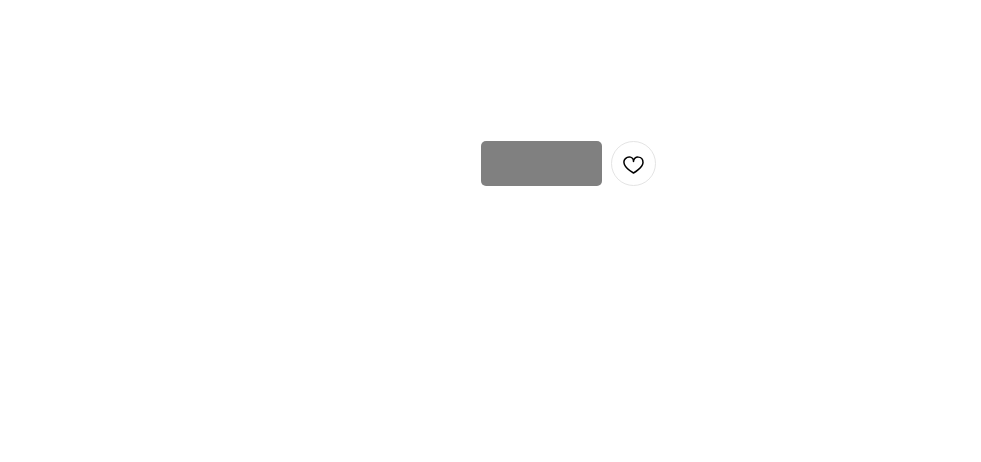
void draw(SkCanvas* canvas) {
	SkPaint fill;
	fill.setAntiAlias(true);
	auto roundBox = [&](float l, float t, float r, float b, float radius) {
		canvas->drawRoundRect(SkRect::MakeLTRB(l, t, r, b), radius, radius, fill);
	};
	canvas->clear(0xFFFFFFFF);
	fill.setColor(0xFF808080);
	roundBox(481, 141, 602, 186, 5);
	fill.setStyle(SkPaint::kStroke_Style);
	fill.setStrokeWidth(1);
	fill.setColor(0xFFE4E4E4);
	canvas->drawCircle(633.5f, 163.5f, 22, fill);
	fill.setStrokeWidth(1.5f);
	fill.setStrokeJoin(SkPaint::kRound_Join);
	fill.setColor(0xFF000000);
	canvas->drawPath(SkPathBuilder().moveTo(643, 162.5f).cubicTo(643, 167.5f, 633.5f, 173, 633.5f, 173).cubicTo(612, 160.5f, 633.5f, 151, 633.5f, 161.5f).cubicTo(633.5f, 155.5f, 643, 155.5f, 643, 162.5f).close().detach(), fill);
}
